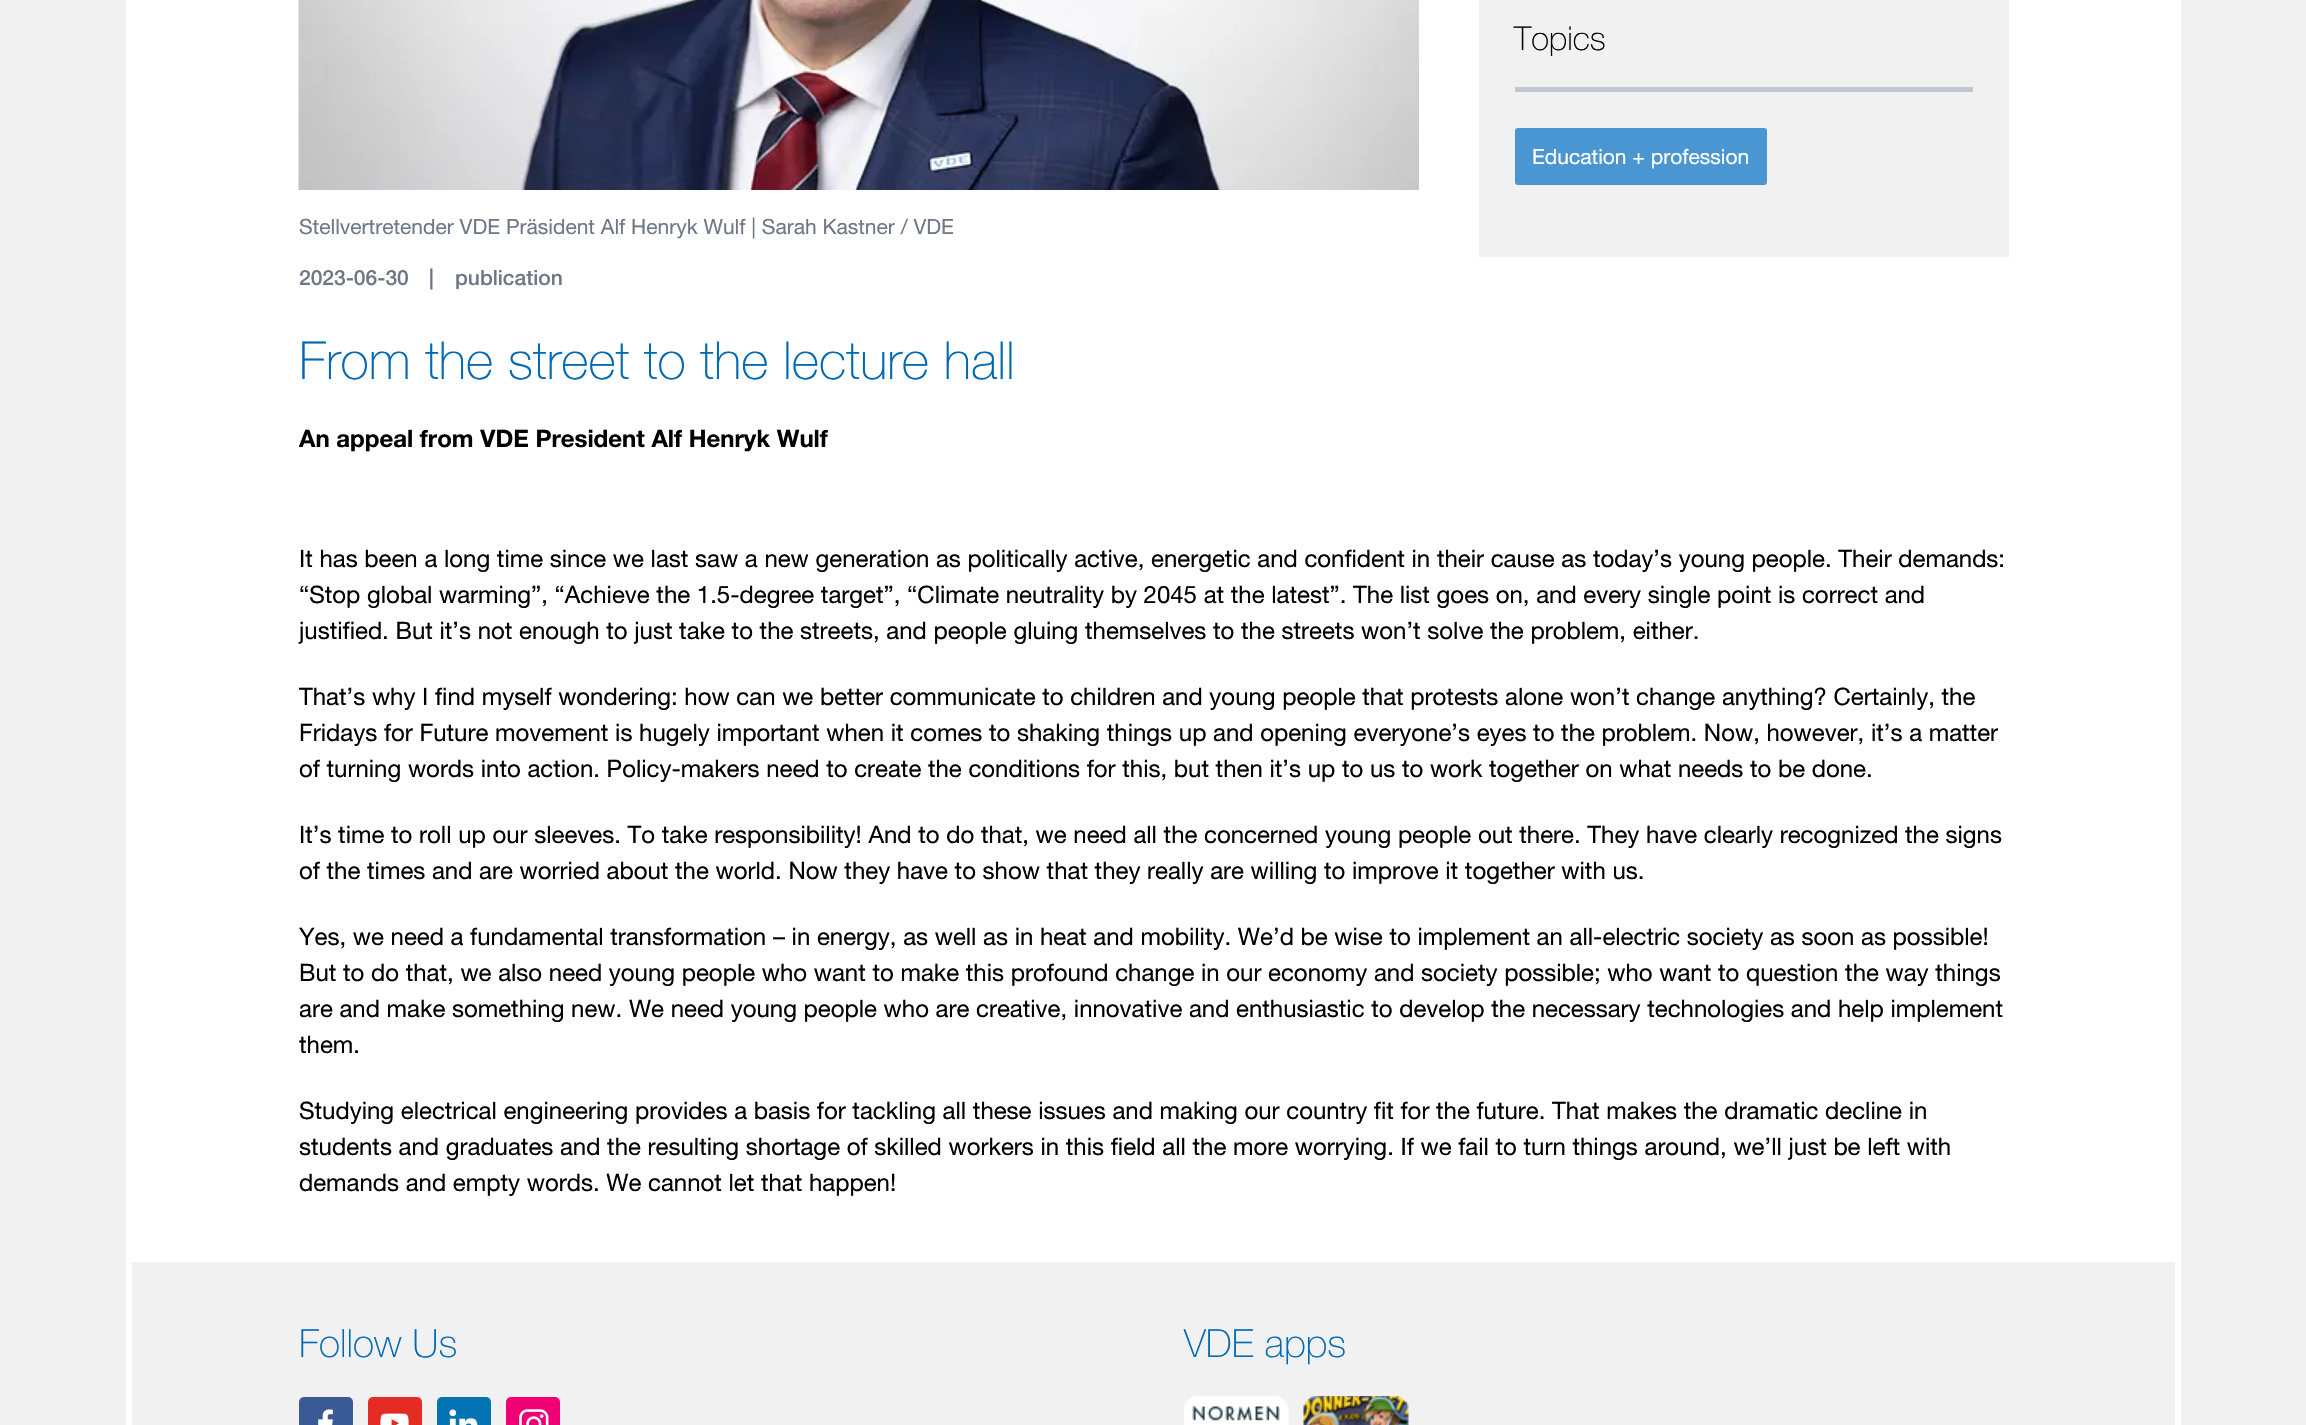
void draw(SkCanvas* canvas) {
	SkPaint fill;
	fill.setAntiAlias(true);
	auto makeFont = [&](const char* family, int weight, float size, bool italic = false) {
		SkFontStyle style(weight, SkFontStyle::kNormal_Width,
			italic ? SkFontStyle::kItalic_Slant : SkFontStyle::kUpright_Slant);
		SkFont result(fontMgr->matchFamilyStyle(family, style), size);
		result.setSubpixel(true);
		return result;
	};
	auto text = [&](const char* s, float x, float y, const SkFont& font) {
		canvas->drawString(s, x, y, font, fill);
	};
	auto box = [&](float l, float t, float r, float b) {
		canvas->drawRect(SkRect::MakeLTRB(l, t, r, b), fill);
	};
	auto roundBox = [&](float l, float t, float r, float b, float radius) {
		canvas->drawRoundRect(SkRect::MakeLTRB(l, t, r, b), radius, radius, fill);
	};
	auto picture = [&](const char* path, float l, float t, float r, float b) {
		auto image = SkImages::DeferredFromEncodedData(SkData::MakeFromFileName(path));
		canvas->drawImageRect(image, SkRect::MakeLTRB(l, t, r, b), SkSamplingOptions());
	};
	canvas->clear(0xFFF1F1F1);
	fill.setColor(0xFFFFFFFF);
	box(126, 0, 2181, 1425);
	fill.setColor(0xFFF1F1F1);
	box(1479, 0, 2009, 257);
	fill.setColor(0xFFC1C7D2);
	box(1515, 87, 1973, 92);
	fill.setColor(0xFF4A96D2);
	roundBox(1515, 128, 1767, 185, 3);
	picture("image0.png", 298, 0, 1419, 190);
	fill.setColor(0xFFF1F1F1);
	box(132, 1262, 2175, 1425);
	fill.setColor(0xFF3A5A97);
	roundBox(299, 1397, 353, 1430, 5);
	picture("image1.png", 318, 1409, 333, 1425);
	fill.setColor(0xFFE42C24);
	roundBox(368, 1397, 422, 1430, 5);
	picture("image2.png", 380, 1413, 409, 1425);
	fill.setColor(0xFF0274B3);
	roundBox(437, 1397, 491, 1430, 5);
	picture("image3.png", 449, 1409, 478, 1425);
	fill.setColor(0xFFF00075);
	roundBox(506, 1397, 560, 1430, 5);
	picture("image4.png", 519, 1409, 549, 1425);
	picture("image5.png", 1184, 1396, 1289, 1425);
	picture("image6.png", 1303, 1396, 1409, 1425);
	auto font1 = makeFont("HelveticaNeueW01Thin", 100, 33);
	fill.setColor(0xFF000000);
	text("Topics", 1514, 50, font1);
	auto font2 = makeFont("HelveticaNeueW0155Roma", 400, 21);
	fill.setColor(0xFFFFFFFF);
	text("Education + profession", 1532, 164, font2);
	fill.setColor(0xFF6E7786);
	text("Stellvertretender VDE Präsident Alf Henryk Wulf | Sarah Kastner / VDE", 299, 234, font2);
	auto font3 = makeFont("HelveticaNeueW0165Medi", 500, 21);
	text("2023-06-30", 299, 285, font3);
	text("|", 429, 285, font3);
	text("publication", 455, 285, font3);
	auto font4 = makeFont("HelveticaNeueW01Thin", 100, 52.5f);
	fill.setColor(0xFF0069B4);
	text("From the street to the lecture hall", 299, 379, font4);
	auto font5 = makeFont("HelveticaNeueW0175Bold", 700, 24);
	fill.setColor(0xFF000000);
	text("An appeal from VDE President Alf Henryk Wulf", 299, 447, font5);
	auto font6 = makeFont("HelveticaNeueW0155Roma", 400, 24);
	text("It has been a long time since we last saw a new generation as politically active, energetic and confident in their cause as today’s young people. Their demands:", 299, 567, font6);
	text("“Stop global warming”, “Achieve the 1.5-degree target”, “Climate neutrality by 2045 at the latest”. The list goes on, and every single point is correct and", 299, 603, font6);
	text("justified. But it’s not enough to just take to the streets, and people gluing themselves to the streets won’t solve the problem, either.", 299, 639, font6);
	text("That’s why I find myself wondering: how can we better communicate to children and young people that protests alone won’t change anything? Certainly, the", 299, 705, font6);
	text("Fridays for Future movement is hugely important when it comes to shaking things up and opening everyone’s eyes to the problem. Now, however, it’s a matter", 299, 741, font6);
	text("of turning words into action. Policy-makers need to create the conditions for this, but then it’s up to us to work together on what needs to be done.", 299, 777, font6);
	text("It’s time to roll up our sleeves. To take responsibility! And to do that, we need all the concerned young people out there. They have clearly recognized the signs", 299, 843, font6);
	text("of the times and are worried about the world. Now they have to show that they really are willing to improve it together with us.", 299, 879, font6);
	text("Yes, we need a fundamental transformation – in energy, as well as in heat and mobility. We’d be wise to implement an all-electric society as soon as possible!", 299, 945, font6);
	text("But to do that, we also need young people who want to make this profound change in our economy and society possible; who want to question the way things", 299, 981, font6);
	text("are and make something new. We need young people who are creative, innovative and enthusiastic to develop the necessary technologies and help implement", 299, 1017, font6);
	text("them.", 299, 1053, font6);
	text("Studying electrical engineering provides a basis for tackling all these issues and making our country fit for the future. That makes the dramatic decline in", 299, 1119, font6);
	text("students and graduates and the resulting shortage of skilled workers in this field all the more worrying. If we fail to turn things around, we’ll just be left with", 299, 1155, font6);
	text("demands and empty words. We cannot let that happen!", 299, 1191, font6);
	auto font7 = makeFont("HelveticaNeueW01Thin", 100, 39);
	fill.setColor(0xFF0069B4);
	text("Follow Us", 299, 1357, font7);
	text("VDE apps", 1184, 1357, font7);
}
